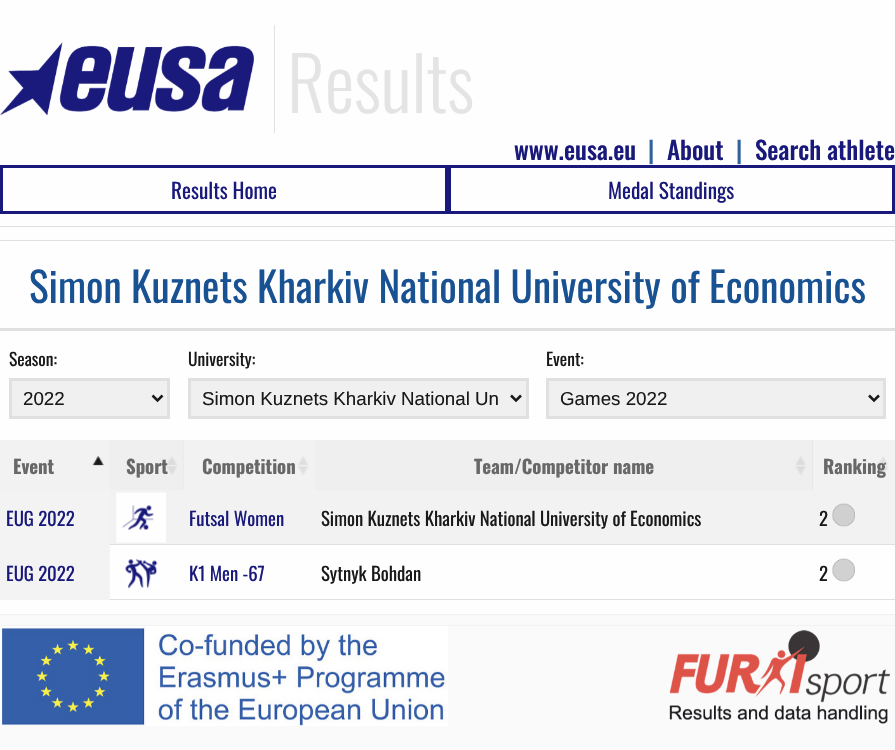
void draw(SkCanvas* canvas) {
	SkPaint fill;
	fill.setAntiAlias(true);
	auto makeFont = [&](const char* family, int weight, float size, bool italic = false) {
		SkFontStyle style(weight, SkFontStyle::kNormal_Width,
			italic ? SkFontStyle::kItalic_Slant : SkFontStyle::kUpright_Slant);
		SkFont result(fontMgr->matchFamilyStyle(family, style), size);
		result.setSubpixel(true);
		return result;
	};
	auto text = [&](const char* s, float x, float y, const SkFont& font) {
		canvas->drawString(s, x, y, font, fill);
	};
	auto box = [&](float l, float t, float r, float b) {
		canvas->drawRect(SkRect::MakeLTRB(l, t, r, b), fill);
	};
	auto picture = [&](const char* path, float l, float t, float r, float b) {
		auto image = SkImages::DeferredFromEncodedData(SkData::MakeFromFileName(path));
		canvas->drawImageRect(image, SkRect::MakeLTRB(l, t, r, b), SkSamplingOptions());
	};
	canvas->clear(0xFFFAFAFA);
	fill.setColor(0xFFE0E0E0);
	fill.setMaskFilter(SkMaskFilter::MakeBlur(kNormal_SkBlurStyle, 1));
	canvas->drawRect(SkRect::MakeLTRB(0, 0, 895, 614), fill);
	fill.setMaskFilter(nullptr);
	fill.setColor(0xFFFEFEFE);
	box(0, 0, 895, 614);
	fill.setColor(0xFFE0E0E0);
	box(0, 240, 895, 241);
	box(0, 226, 895, 227);
	fill.setColor(0xFFE2E2E2);
	box(274, 25, 275, 133);
	picture("image0.png", 0, 42, 254, 116);
	fill.setStyle(SkPaint::kStroke_Style);
	fill.setStrokeWidth(3);
	fill.setColor(0xFF19197C);
	canvas->drawRect(SkRect::MakeLTRB(1.5f, 166.5f, 446.5f, 212.5f), fill);
	canvas->drawRect(SkRect::MakeLTRB(449.5f, 166.5f, 893.5f, 212.5f), fill);
	fill.setStyle(SkPaint::kFill_Style);
	fill.setColor(0xFFE0E0E0);
	box(0, 328, 895, 331);
	fill.setColor(0xFFF0F0F0);
	canvas->drawRect(SkRect::MakeLTRB(10.5f, 379.5f, 168.5f, 417.5f), fill);
	fill.setStyle(SkPaint::kStroke_Style);
	fill.setColor(0xFFE0E0E0);
	canvas->drawRect(SkRect::MakeLTRB(10.5f, 379.5f, 168.5f, 417.5f), fill);
	fill.setStrokeWidth(2.5f);
	fill.setColor(0xFF191919);
	canvas->drawPath(SkPathBuilder().moveTo(152.5f, 395.5f).lineTo(157.5f, 400.5f).lineTo(162.5f, 395.5f).detach(), fill);
	fill.setStyle(SkPaint::kFill_Style);
	fill.setColor(0xFFF0F0F0);
	canvas->drawRect(SkRect::MakeLTRB(189.5f, 379.5f, 527.5f, 417.5f), fill);
	fill.setStyle(SkPaint::kStroke_Style);
	fill.setStrokeWidth(3);
	fill.setColor(0xFFE0E0E0);
	canvas->drawRect(SkRect::MakeLTRB(189.5f, 379.5f, 527.5f, 417.5f), fill);
	fill.setStrokeWidth(2.5f);
	fill.setColor(0xFF191919);
	canvas->drawPath(SkPathBuilder().moveTo(511, 395.5f).lineTo(516, 400.5f).lineTo(521, 395.5f).detach(), fill);
	fill.setStyle(SkPaint::kFill_Style);
	fill.setColor(0xFFF0F0F0);
	canvas->drawRect(SkRect::MakeLTRB(547.5f, 379.5f, 884.5f, 417.5f), fill);
	fill.setStyle(SkPaint::kStroke_Style);
	fill.setStrokeWidth(3);
	fill.setColor(0xFFE0E0E0);
	canvas->drawRect(SkRect::MakeLTRB(547.5f, 379.5f, 884.5f, 417.5f), fill);
	fill.setStrokeWidth(2.5f);
	fill.setColor(0xFF191919);
	canvas->drawPath(SkPathBuilder().moveTo(869, 395.5f).lineTo(874, 400.5f).lineTo(879, 395.5f).detach(), fill);
	picture("image1.png", 0, 440, 110, 490);
	fill.setStyle(SkPaint::kFill_Style);
	fill.setColor(0xFFE0E0E0);
	box(110, 440, 184, 490);
	picture("image2.png", 110, 440, 184, 490);
	picture("image3.png", 184, 440, 315, 490);
	box(315, 440, 813, 490);
	picture("image4.png", 315, 440, 813, 490);
	picture("image5.png", 813, 440, 895, 490);
	fill.setColor(0xFFF2F2F2);
	box(110, 490, 895, 544);
	fill.setColor(0xFFE0E0E0);
	box(110, 544, 895, 545);
	fill.setColor(0xFFF3F3F3);
	box(0, 490, 110, 600);
	picture("image6.png", 116, 492, 166, 543);
	picture("image7.png", 832, 503, 855, 527);
	fill.setColor(0xFFE0E0E0);
	box(110, 599, 895, 600);
	picture("image8.png", 125, 559, 158, 589);
	picture("image9.png", 832, 558, 855, 582);
	fill.setColor(0xFFF3F3F3);
	box(0, 625, 895, 626);
	picture("image10.png", 0, 626, 448, 726);
	picture("image11.png", 669, 630, 890, 724);
	auto font1 = makeFont("Oswald", 300, 74);
	fill.setColor(0xFFE4E4E4);
	text("Results", 287, 113, font1);
	auto font2 = makeFont("Oswald", 500, 25);
	fill.setColor(0xFF19197C);
	text("www.eusa.eu", 514, 160, font2);
	fill.setColor(0xFF30629C);
	text("|", 648, 160, font2);
	fill.setColor(0xFF19197C);
	text("About", 667, 160, font2);
	fill.setColor(0xFF30629C);
	text("|", 736, 160, font2);
	fill.setColor(0xFF19197C);
	text("Search athlete", 755, 160, font2);
	auto font3 = makeFont("Oswald", 400, 21.25f);
	text("Results Home", 171, 199, font3);
	text("Medal Standings", 608, 199, font3);
	auto font4 = makeFont("Oswald", 400, 41.25f);
	fill.setColor(0xFF195292);
	text("Simon Kuznets Kharkiv National University of Economics", 29, 303, font4);
	auto font5 = makeFont("Oswald", 400, 17.5f);
	fill.setColor(0xFF191919);
	text("Season:", 9, 366, font5);
	auto font6 = makeFont("Liberation Sans", 400, 18.75f);
	text("2022", 23, 405, font6);
	text("University:", 188, 366, font5);
	text("Simon Kuznets Kharkiv National Un", 202, 405, font6);
	text("Event:", 546, 366, font5);
	text("Games 2022", 560, 405, font6);
	auto font7 = makeFont("Oswald", 700, 18.75f);
	fill.setColor(0xFF686868);
	text("Event", 13, 474, font7);
	text("Sport", 126, 474, font7);
	text("Competition", 202, 474, font7);
	text("Team/Competitor name", 474, 474, font7);
	text("Ranking", 823, 474, font7);
	auto font8 = makeFont("Oswald", 400, 18.75f);
	fill.setColor(0xFF19197C);
	text("EUG 2022", 6, 526, font8);
	text("Futsal Women", 189, 526, font8);
	fill.setColor(0xFF191919);
	text("Simon Kuznets Kharkiv National University of Economics", 321, 526, font8);
	text("2", 819, 526, font8);
	fill.setColor(0xFF19197C);
	text("EUG 2022", 6, 581, font8);
	text("K1 Men -67", 189, 581, font8);
	fill.setColor(0xFF191919);
	text("Sytnyk Bohdan", 321, 581, font8);
	text("2", 819, 581, font8);
}
